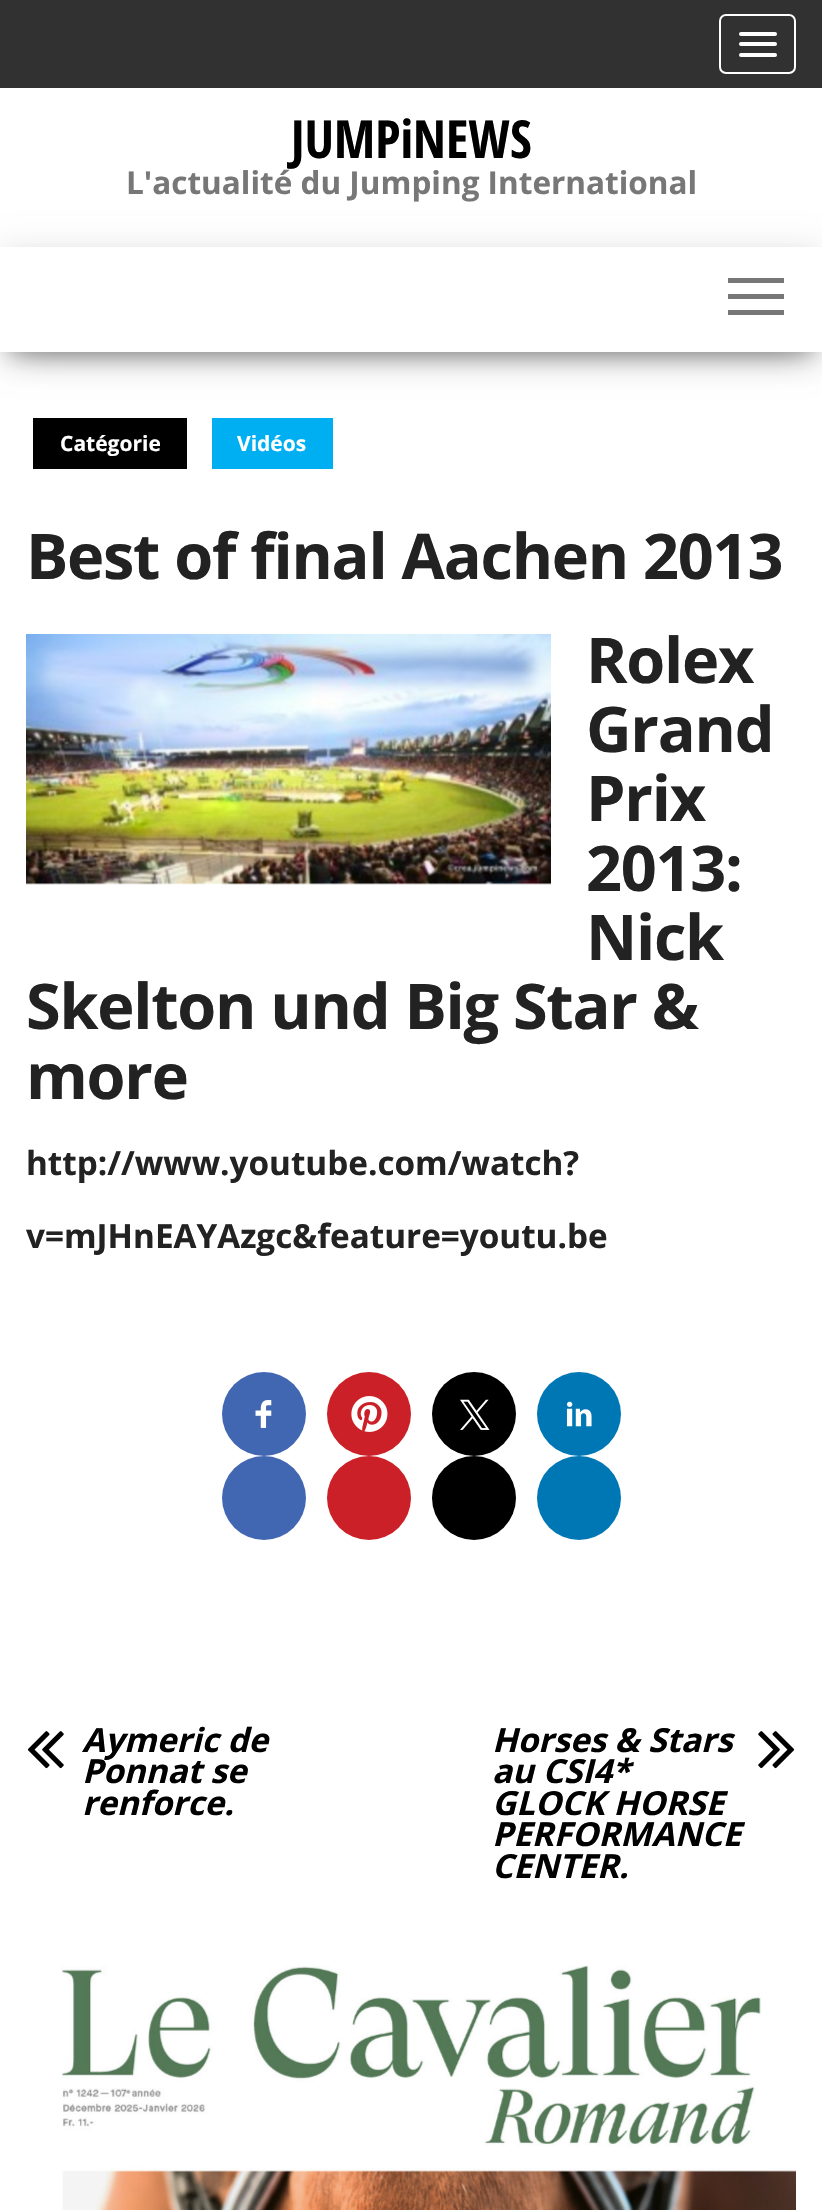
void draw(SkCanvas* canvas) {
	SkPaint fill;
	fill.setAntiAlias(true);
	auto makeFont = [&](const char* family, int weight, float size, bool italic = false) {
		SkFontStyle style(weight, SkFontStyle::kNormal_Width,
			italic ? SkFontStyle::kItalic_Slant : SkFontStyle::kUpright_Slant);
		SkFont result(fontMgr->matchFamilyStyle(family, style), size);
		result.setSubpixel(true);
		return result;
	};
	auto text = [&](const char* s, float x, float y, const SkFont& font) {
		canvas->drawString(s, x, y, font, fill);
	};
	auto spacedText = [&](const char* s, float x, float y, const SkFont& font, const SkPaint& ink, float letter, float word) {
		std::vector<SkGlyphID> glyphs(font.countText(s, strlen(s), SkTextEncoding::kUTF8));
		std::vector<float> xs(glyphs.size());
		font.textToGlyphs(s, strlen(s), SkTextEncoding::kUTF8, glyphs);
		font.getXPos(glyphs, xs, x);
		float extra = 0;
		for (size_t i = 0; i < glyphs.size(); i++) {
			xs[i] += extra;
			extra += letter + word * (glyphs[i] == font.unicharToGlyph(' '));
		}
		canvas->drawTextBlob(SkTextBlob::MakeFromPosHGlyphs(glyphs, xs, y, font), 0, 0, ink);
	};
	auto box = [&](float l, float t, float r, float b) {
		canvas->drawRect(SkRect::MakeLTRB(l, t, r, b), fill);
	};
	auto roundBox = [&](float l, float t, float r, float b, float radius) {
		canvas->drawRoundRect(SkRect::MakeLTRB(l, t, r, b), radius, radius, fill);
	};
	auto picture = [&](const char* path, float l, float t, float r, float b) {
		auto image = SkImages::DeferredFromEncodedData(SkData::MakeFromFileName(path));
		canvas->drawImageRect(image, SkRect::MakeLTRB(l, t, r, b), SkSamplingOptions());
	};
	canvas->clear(0xFFFFFFFF);
	fill.setColor(0xFF313131);
	box(0, 0, 822, 88);
	fill.setStyle(SkPaint::kStroke_Style);
	fill.setStrokeWidth(2);
	fill.setColor(0xFFFFFFFF);
	canvas->drawRoundRect(SkRect::MakeLTRB(720, 15, 795, 73), 6, 6, fill);
	fill.setStyle(SkPaint::kFill_Style);
	roundBox(739, 32, 777, 36, 2);
	roundBox(739, 42, 777, 46, 2);
	roundBox(739, 53, 777, 57, 2);
	fill.setColor(0x33000000);
	fill.setMaskFilter(SkMaskFilter::MakeBlur(kNormal_SkBlurStyle, 9));
	canvas->drawRect(SkRect::MakeLTRB(9, 270, 814, 357), fill);
	fill.setMaskFilter(nullptr);
	fill.setColor(0x1F000000);
	fill.setMaskFilter(SkMaskFilter::MakeBlur(kNormal_SkBlurStyle, 17.5f));
	canvas->drawRect(SkRect::MakeLTRB(0, 252, 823, 357), fill);
	fill.setMaskFilter(nullptr);
	fill.setColor(0x6B000000);
	fill.setMaskFilter(SkMaskFilter::MakeBlur(kNormal_SkBlurStyle, 17.5f));
	canvas->drawRect(SkRect::MakeLTRB(21, 285, 802, 348), fill);
	fill.setMaskFilter(nullptr);
	fill.setColor(0xFFFFFFFF);
	box(0, 247, 822, 352);
	fill.setColor(0xFF777777);
	box(728, 278, 784, 283);
	box(728, 294, 784, 299);
	box(728, 310, 784, 315);
	fill.setColor(0xFF000000);
	box(33, 418, 187, 469);
	fill.setColor(0xFF00AFF2);
	box(212, 418, 333, 469);
	picture("image0.png", 26, 634, 551, 885);
	fill.setColor(0xFF4267B2);
	canvas->drawCircle(264, 1414, 42, fill);
	picture("image1.png", 255, 1400, 272, 1428);
	canvas->drawCircle(264, 1498, 42, fill);
	fill.setColor(0xFFCB2027);
	canvas->drawCircle(369, 1414, 42, fill);
	picture("image2.png", 351, 1396, 388, 1432);
	canvas->drawCircle(369, 1498, 42, fill);
	fill.setColor(0xFF000000);
	canvas->drawCircle(474, 1414, 42, fill);
	picture("image3.png", 460, 1399, 490, 1430);
	canvas->drawCircle(474, 1498, 42, fill);
	fill.setColor(0xFF0077B5);
	canvas->drawCircle(579, 1414, 42, fill);
	picture("image4.png", 566, 1401, 592, 1427);
	canvas->drawCircle(579, 1498, 42, fill);
	picture("image5.png", 27, 1731, 64, 1769);
	picture("image6.png", 758, 1731, 795, 1769);
	picture("image7.png", 61, 1965, 796, 2210);
	auto font1 = makeFont("Open Sans Condensed", 700, 52.5f);
	fill.setColor(0xFF000000);
	text("JUMPiNEWS", 291, 158, font1);
	auto font2 = makeFont("Open Sans", 700, 31.5f);
	fill.setColor(0xFF777777);
	text("L'actualité du Jumping International", 126, 194, font2);
	auto font3 = makeFont("Open Sans", 700, 21);
	fill.setColor(0xFFFFFFFF);
	text("Catégorie", 60, 451, font3);
	text("Vidéos", 237, 451, font3);
	auto font4 = makeFont("Open Sans", 700, 63);
	fill.setColor(0xFF222222);
	spacedText("Best of final Aachen 2013", 26, 579, font4, fill, -1.25f, 0);
	spacedText("Rolex", 586, 683, font4, fill, -1.25f, 0);
	spacedText("Grand", 586, 752, font4, fill, -1.25f, 0);
	spacedText("Prix", 586, 821, font4, fill, -1.25f, 0);
	spacedText("2013:", 586, 891, font4, fill, -1.25f, 0);
	spacedText("Nick", 586, 960, font4, fill, -1.25f, 0);
	spacedText("Skelton und Big Star &", 26, 1029, font4, fill, -1.25f, 0);
	spacedText("more", 26, 1099, font4, fill, -1.25f, 0);
	auto font5 = makeFont("Open Sans", 700, 33.25f);
	text("http://www.youtube.com/watch?", 26, 1175, font5);
	text("v=mJHnEAYAzgc&feature=youtu.be", 26, 1248, font5);
	auto font6 = makeFont("Open Sans", 700, 33.25f, true);
	fill.setColor(0xFF000000);
	text("Aymeric de", 82, 1752, font6);
	text("Ponnat se", 82, 1783, font6);
	text("renforce.", 82, 1815, font6);
	text("Horses & Stars", 492, 1752, font6);
	text("au CSI4*", 492, 1783, font6);
	text("GLOCK HORSE", 492, 1815, font6);
	text("PERFORMANCE", 492, 1846, font6);
	text("CENTER.", 492, 1878, font6);
}
